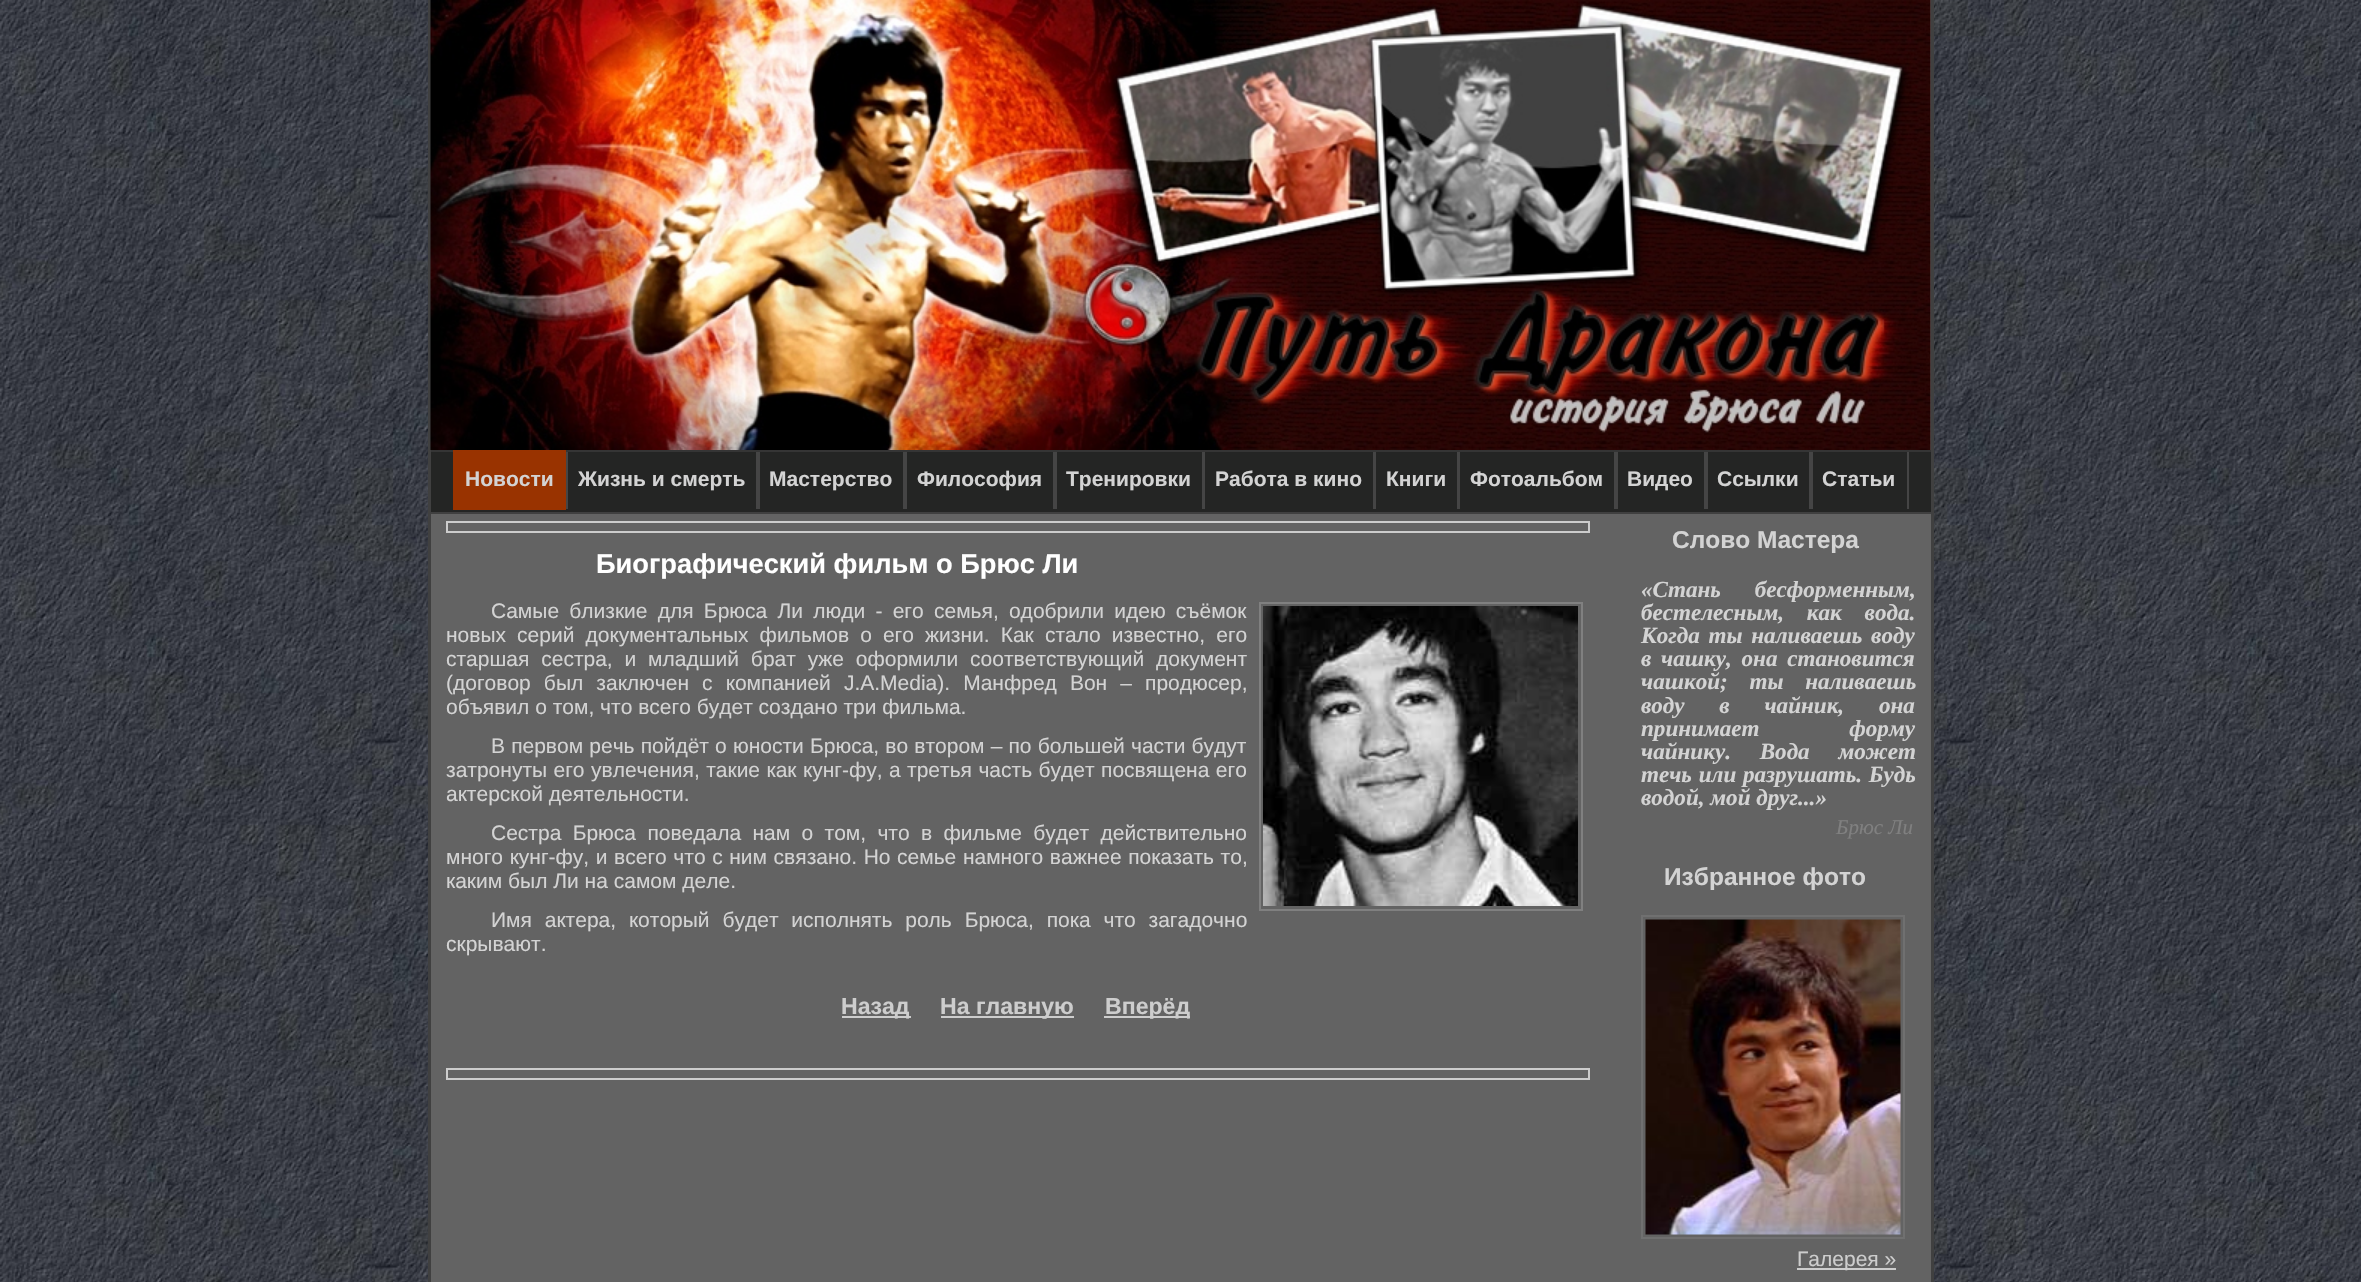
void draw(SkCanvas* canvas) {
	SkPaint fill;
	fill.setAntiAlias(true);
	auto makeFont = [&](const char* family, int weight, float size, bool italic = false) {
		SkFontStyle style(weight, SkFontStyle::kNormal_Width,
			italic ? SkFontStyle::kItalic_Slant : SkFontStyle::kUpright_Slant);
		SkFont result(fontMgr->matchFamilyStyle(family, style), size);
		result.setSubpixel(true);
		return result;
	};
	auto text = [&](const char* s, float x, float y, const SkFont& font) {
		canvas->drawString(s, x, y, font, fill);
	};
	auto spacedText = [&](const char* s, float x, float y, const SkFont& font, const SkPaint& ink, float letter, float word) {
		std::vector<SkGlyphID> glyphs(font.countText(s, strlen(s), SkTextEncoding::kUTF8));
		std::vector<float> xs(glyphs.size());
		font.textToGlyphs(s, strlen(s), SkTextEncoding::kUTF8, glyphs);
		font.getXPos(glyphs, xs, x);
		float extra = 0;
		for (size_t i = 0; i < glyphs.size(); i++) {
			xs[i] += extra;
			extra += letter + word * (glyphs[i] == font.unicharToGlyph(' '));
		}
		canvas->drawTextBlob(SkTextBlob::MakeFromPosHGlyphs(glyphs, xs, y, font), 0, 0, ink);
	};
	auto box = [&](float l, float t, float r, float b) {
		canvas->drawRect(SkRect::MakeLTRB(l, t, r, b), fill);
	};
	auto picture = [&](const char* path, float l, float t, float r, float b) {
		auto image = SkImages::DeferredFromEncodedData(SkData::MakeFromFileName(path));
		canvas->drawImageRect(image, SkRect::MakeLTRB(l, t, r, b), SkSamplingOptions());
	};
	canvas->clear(0xFFFFFFFF);
	picture("image0.png", 0, 0, 2361, 1282);
	fill.setColor(0xFF636363);
	box(431, 0, 1931, 1282);
	fill.setColor(0xFF404040);
	box(1931, 0, 1934, 1282);
	box(428, 0, 431, 1282);
	picture("image1.png", 430, 0, 1931, 450);
	fill.setColor(0xFF242524);
	box(431, 452, 1931, 512);
	fill.setColor(0xFF353535);
	box(431, 450, 1931, 452);
	fill.setColor(0xFF404040);
	box(431, 512, 1931, 514);
	fill.setColor(0xFF993300);
	box(453, 450, 566, 510);
	fill.setColor(0xFF454545);
	box(756, 452, 760, 509);
	box(566, 452, 568, 509);
	box(903, 452, 907, 509);
	box(1053, 452, 1057, 509);
	box(1202, 452, 1205, 509);
	box(1373, 452, 1376, 509);
	box(1457, 452, 1460, 509);
	box(1614, 452, 1618, 509);
	box(1704, 452, 1708, 509);
	box(1809, 452, 1813, 509);
	box(1907, 452, 1909, 509);
	fill.setStyle(SkPaint::kStroke_Style);
	fill.setStrokeWidth(2);
	fill.setColor(0xFFCCCCCC);
	canvas->drawRect(SkRect::MakeLTRB(447, 522, 1589, 532), fill);
	fill.setColor(0xFF808080);
	canvas->drawRect(SkRect::MakeLTRB(1260, 603, 1582, 910), fill);
	picture("image2.png", 1263, 606, 1578, 906);
	fill.setStyle(SkPaint::kFill_Style);
	fill.setColor(0xFFCDCDCD);
	box(842, 1016, 911, 1018);
	box(941, 1016, 1074, 1018);
	box(1104, 1016, 1190, 1018);
	fill.setStyle(SkPaint::kStroke_Style);
	fill.setColor(0xFFCCCCCC);
	canvas->drawRect(SkRect::MakeLTRB(447, 1069, 1589, 1079), fill);
	fill.setColor(0xFF707070);
	canvas->drawRect(SkRect::MakeLTRB(1642, 916, 1904, 1238), fill);
	picture("image3.png", 1645, 919, 1901, 1235);
	fill.setStyle(SkPaint::kFill_Style);
	fill.setColor(0xFFCDCDCD);
	box(1797, 1268, 1896, 1270);
	auto font1 = makeFont("Liberation Sans", 700, 21);
	fill.setColor(0xFFD3D3D3);
	text("Новости", 465, 486, font1);
	text("Жизнь и смерть", 578, 486, font1);
	text("Мастерство", 769, 486, font1);
	text("Философия", 917, 486, font1);
	text("Тренировки", 1066, 486, font1);
	text("Работа в кино", 1215, 486, font1);
	text("Книги", 1386, 486, font1);
	text("Фотоальбом", 1470, 486, font1);
	text("Видео", 1627, 486, font1);
	text("Ссылки", 1717, 486, font1);
	text("Статьи", 1822, 486, font1);
	auto font2 = makeFont("Liberation Sans", 700, 27.25f);
	fill.setColor(0xFFFFFFFF);
	text("Биографический фильм о Брюс Ли", 596, 573, font2);
	auto font3 = makeFont("Liberation Sans", 400, 21);
	fill.setColor(0xFFD3D3D3);
	spacedText("Самые близкие для Брюса Ли люди - его семья, одобрили идею съёмок", 491, 618, font3, fill, 0, 4.4f);
	spacedText("новых серий документальных фильмов о его жизни. Как стало известно, его", 446, 642, font3, fill, 0, 5.25f);
	spacedText("старшая сестра, и младший брат уже оформили соответствующий документ", 446, 666, font3, fill, 0, 6);
	spacedText("(договор был заключен с компанией J.A.Media). Манфред Вон – продюсер,", 446, 690, font3, fill, 0, 7.25f);
	text("объявил о том, что всего будет создано три фильма.", 446, 714, font3);
	spacedText("В первом речь пойдёт о юности Брюса, во втором – по большей части будут", 491, 753, font3, fill, 0, 0.3f);
	spacedText("затронуты его увлечения, такие как кунг-фу, а третья часть будет посвящена его", 446, 777, font3, fill, 0, 0.6f);
	text("актерской деятельности.", 446, 801, font3);
	spacedText("Сестра Брюса поведала нам о том, что в фильме будет действительно", 491, 840, font3, fill, 0, 5.5f);
	spacedText("много кунг-фу, и всего что с ним связано. Но семье намного важнее показать то,", 446, 864, font3, fill, 0, 0.75f);
	text("каким был Ли на самом деле.", 446, 888, font3);
	spacedText("Имя актера, который будет исполнять роль Брюса, пока что загадочно", 491, 927, font3, fill, 0, 7);
	text("скрывают.", 446, 951, font3);
	auto font4 = makeFont("Liberation Sans", 700, 23.1f);
	fill.setColor(0xFFCDCDCD);
	text("Назад", 841, 1014, font4);
	text("На главную", 940, 1014, font4);
	text("Вперёд", 1105, 1014, font4);
	auto font5 = makeFont("Liberation Sans", 700, 24.5f);
	fill.setColor(0xFFD3D3D3);
	text("Слово Мастера", 1672, 548, font5);
	auto font6 = makeFont("Liberation Serif", 700, 23.1f, true);
	spacedText("«Стань бесформенным,", 1641, 597, font6, fill, 0, 28);
	spacedText("бестелесным, как вода.", 1641, 620, font6, fill, 0, 17);
	spacedText("Когда ты наливаешь воду", 1641, 643, font6, fill, 0, 3);
	spacedText("в чашку, она становится", 1641, 666, font6, fill, 0, 4);
	spacedText("чашкой; ты наливаешь", 1641, 689, font6, fill, 0, 16);
	spacedText("воду в чайник, она", 1641, 713, font6, fill, 0, 29);
	spacedText("принимает форму", 1641, 736, font6, fill, 0, 84);
	spacedText("чайнику. Вода может", 1641, 759, font6, fill, 0, 23);
	spacedText("течь или разрушать. Будь", 1641, 782, font6, fill, 0, 1);
	text("водой, мой друг...»", 1641, 805, font6);
	auto font7 = makeFont("Liberation Serif", 400, 21, true);
	fill.setColor(0xFF808080);
	text("Брюс Ли", 1836, 834, font7);
	fill.setColor(0xFFD3D3D3);
	text("Избранное фото", 1664, 885, font5);
	fill.setColor(0xFFCDCDCD);
	text("Галерея »", 1797, 1266, font3);
}
